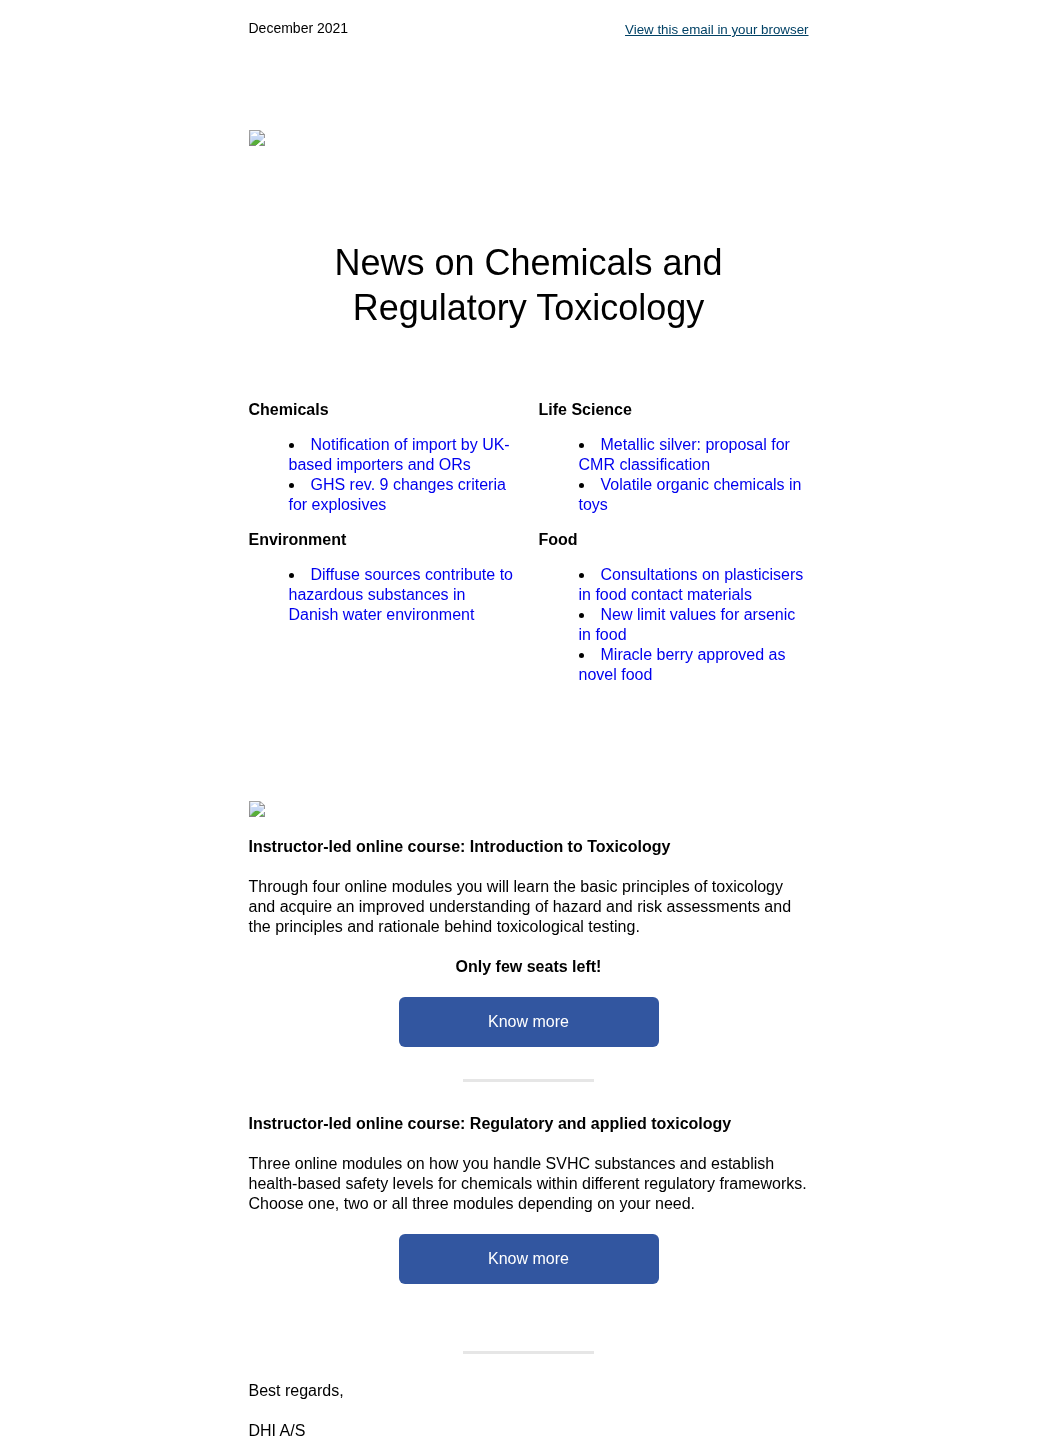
void draw(SkCanvas* canvas) {
	SkPaint fill;
	fill.setAntiAlias(true);
	auto picture = [&](const char* path, float l, float t, float r, float b) {
		auto image = SkImages::DeferredFromEncodedData(SkData::MakeFromFileName(path));
		canvas->drawImageRect(image, SkRect::MakeLTRB(l, t, r, b), SkSamplingOptions());
	};
	canvas->clear(0xFFFFFFFF);
	picture("image0.png", 248, 22, 809, 1436);
}
